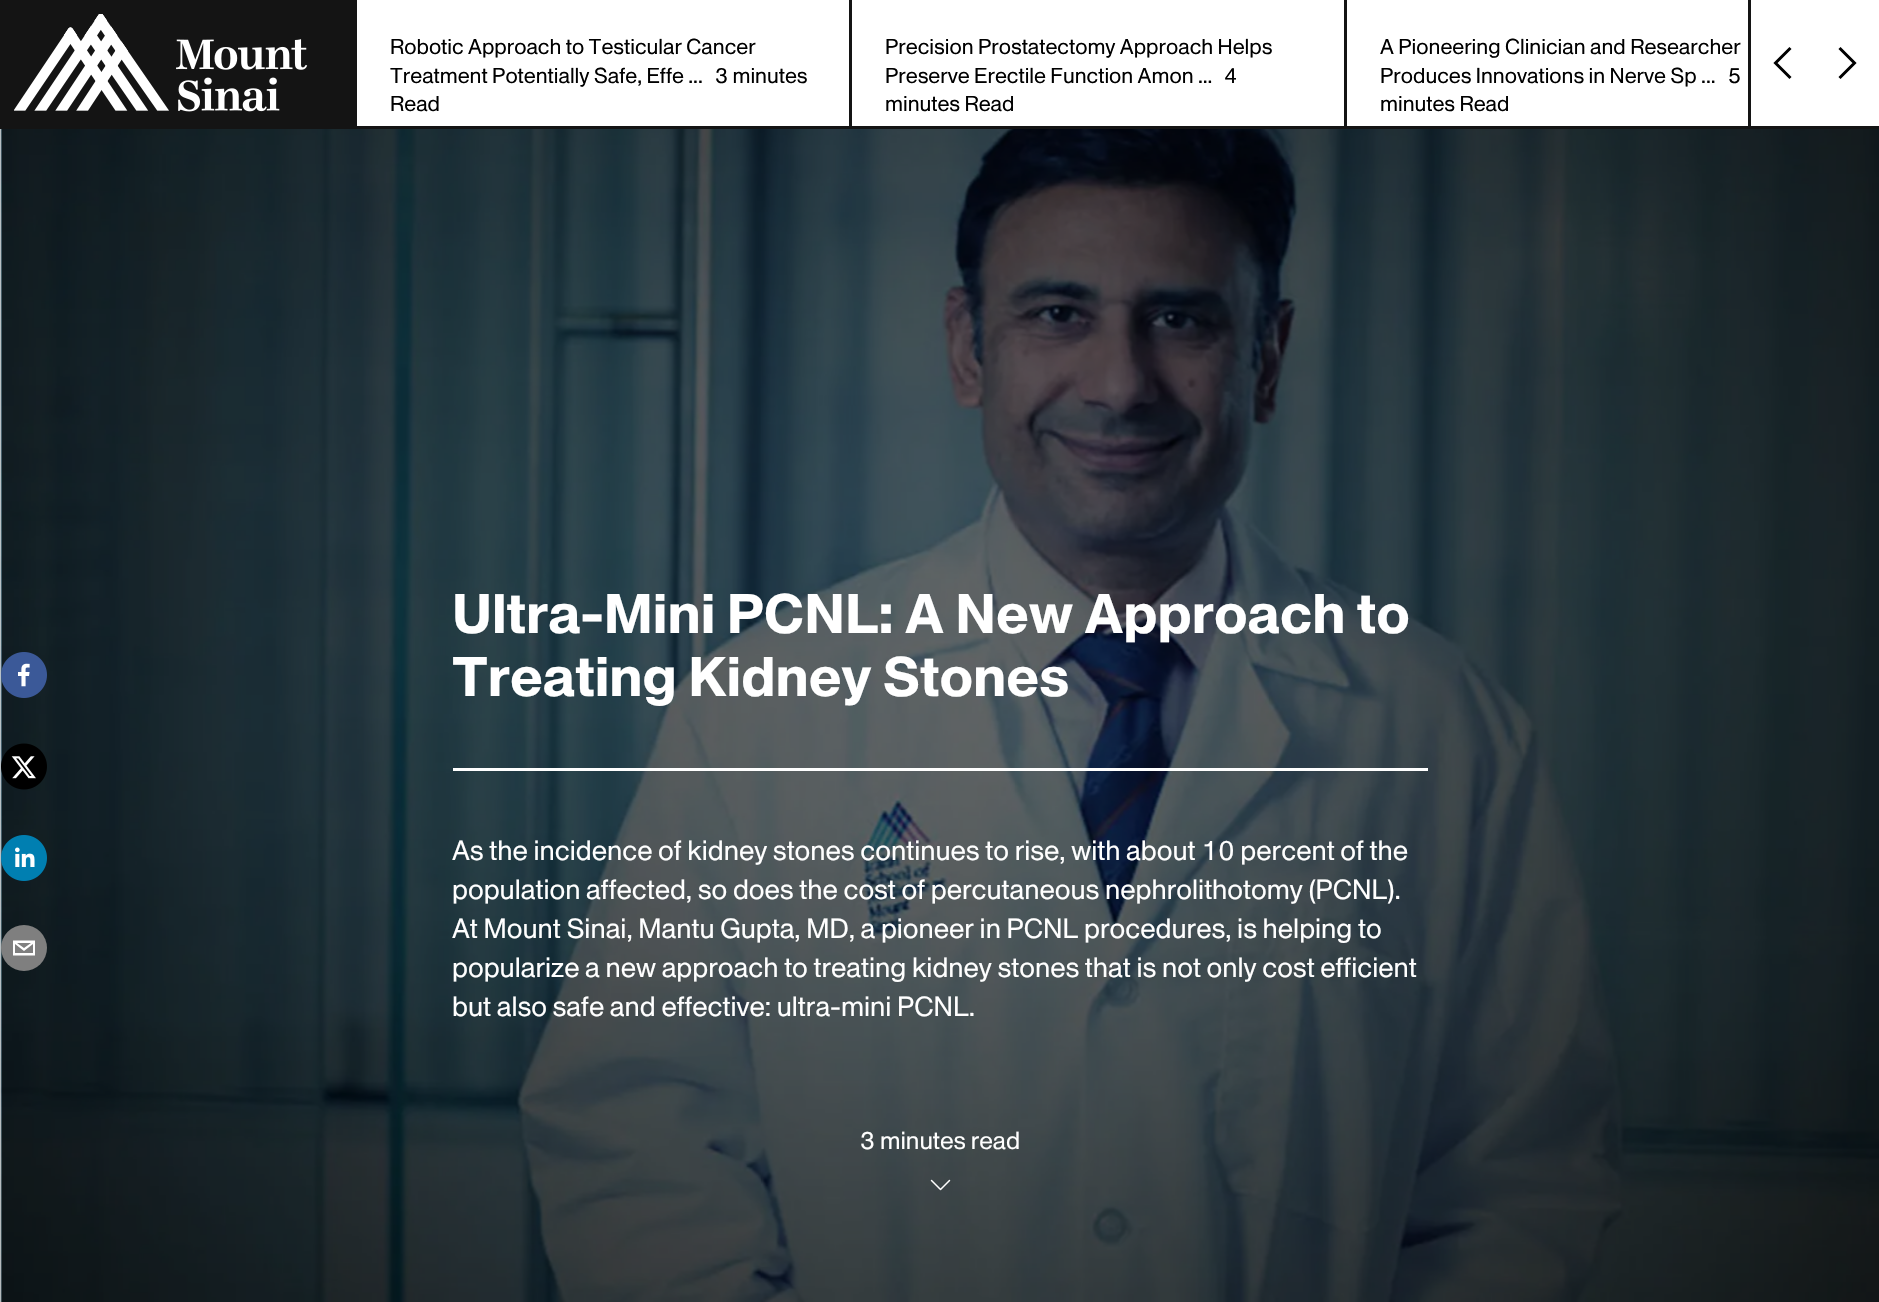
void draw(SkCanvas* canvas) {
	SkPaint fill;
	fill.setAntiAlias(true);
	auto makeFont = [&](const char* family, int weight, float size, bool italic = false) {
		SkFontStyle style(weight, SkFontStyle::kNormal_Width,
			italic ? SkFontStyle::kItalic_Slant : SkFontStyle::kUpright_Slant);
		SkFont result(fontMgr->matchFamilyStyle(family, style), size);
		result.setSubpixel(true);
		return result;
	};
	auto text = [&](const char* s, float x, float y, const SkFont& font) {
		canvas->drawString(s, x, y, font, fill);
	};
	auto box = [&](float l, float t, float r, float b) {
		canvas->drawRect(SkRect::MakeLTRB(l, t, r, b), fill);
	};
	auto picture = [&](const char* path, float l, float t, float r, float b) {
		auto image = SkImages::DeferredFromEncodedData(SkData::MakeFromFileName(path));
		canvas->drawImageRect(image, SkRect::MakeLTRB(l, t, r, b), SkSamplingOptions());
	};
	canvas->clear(0xFFFFFFFF);
	fill.setColor(0xFF141414);
	box(0, 0, 357, 126);
	picture("image0.png", 14, 14, 308, 112);
	box(849, 0, 852, 126);
	box(1344, 0, 1347, 126);
	box(1748, 0, 1751, 126);
	fill.setStyle(SkPaint::kStroke_Style);
	fill.setStrokeWidth(3);
	fill.setColor(0xFF000000);
	canvas->drawPath(SkPathBuilder().moveTo(1790.5f, 78).lineTo(1775.5f, 63).lineTo(1790.5f, 48).detach(), fill);
	canvas->drawPath(SkPathBuilder().moveTo(1839.5f, 48).lineTo(1854.5f, 63).lineTo(1839.5f, 78).detach(), fill);
	fill.setStyle(SkPaint::kFill_Style);
	fill.setColor(0xFF141414);
	box(0, 126, 1879, 129);
	picture("image4.png", 0, 129, 1879, 1302);
	picture("image1.png", 1, 652, 47, 698);
	picture("image2.png", 1, 743, 47, 790);
	picture("image3.png", 1, 835, 47, 881);
	fill.setColor(0xFF7F7F7F);
	canvas->drawCircle(24, 948, 23, fill);
	fill.setColor(0xFFFFFFFF);
	canvas->drawPath(SkPathBuilder().moveTo(13, 940.5f).lineTo(13, 955.5f).lineTo(35, 955.5f).lineTo(35, 940.5f).close().moveTo(31, 943).lineTo(24, 948).lineTo(17, 943).close().moveTo(15, 953).lineTo(15, 944).lineTo(24, 951).lineTo(33, 944).lineTo(33, 953).close().detach(), fill);
	box(453, 768, 1428, 771);
	picture("image5.png", 930, 1179, 951, 1191);
	auto font1 = makeFont("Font", 400, 21);
	fill.setColor(0xFF000000);
	text("Robotic Approach to Testicular Cancer", 390, 54, font1);
	text("Treatment Potentially Safe, Effe ...", 390, 83, font1);
	text("3 minutes", 715, 83, font1);
	text("Read", 390, 111, font1);
	text("Precision Prostatectomy Approach Helps", 885, 54, font1);
	text("Preserve Erectile Function Amon ...", 885, 83, font1);
	text("4", 1224, 83, font1);
	text("minutes Read", 885, 111, font1);
	text("A Pioneering Clinician and Researcher", 1380, 54, font1);
	text("Produces Innovations in Nerve Sp ...", 1380, 83, font1);
	text("5", 1728, 83, font1);
	text("minutes Read", 1380, 111, font1);
	auto font2 = makeFont("Font", 700, 54);
	fill.setColor(0xFFFFFFFF);
	text("Ultra-Mini PCNL: A New Approach to", 452, 633, font2);
	text("Treating Kidney Stones", 452, 696, font2);
	auto font3 = makeFont("Font", 400, 27);
	text("As the incidence of kidney stones continues to rise, with about 10 percent of the", 452, 860, font3);
	text("population affected, so does the cost of percutaneous nephrolithotomy (PCNL).", 452, 899, font3);
	text("At Mount Sinai, Mantu Gupta, MD, a pioneer in PCNL procedures, is helping to", 452, 938, font3);
	text("popularize a new approach to treating kidney stones that is not only cost efficient", 452, 977, font3);
	text("but also safe and effective: ultra-mini PCNL.", 452, 1016, font3);
	auto font4 = makeFont("Font", 400, 24);
	text("3 minutes read", 860, 1149, font4);
}
